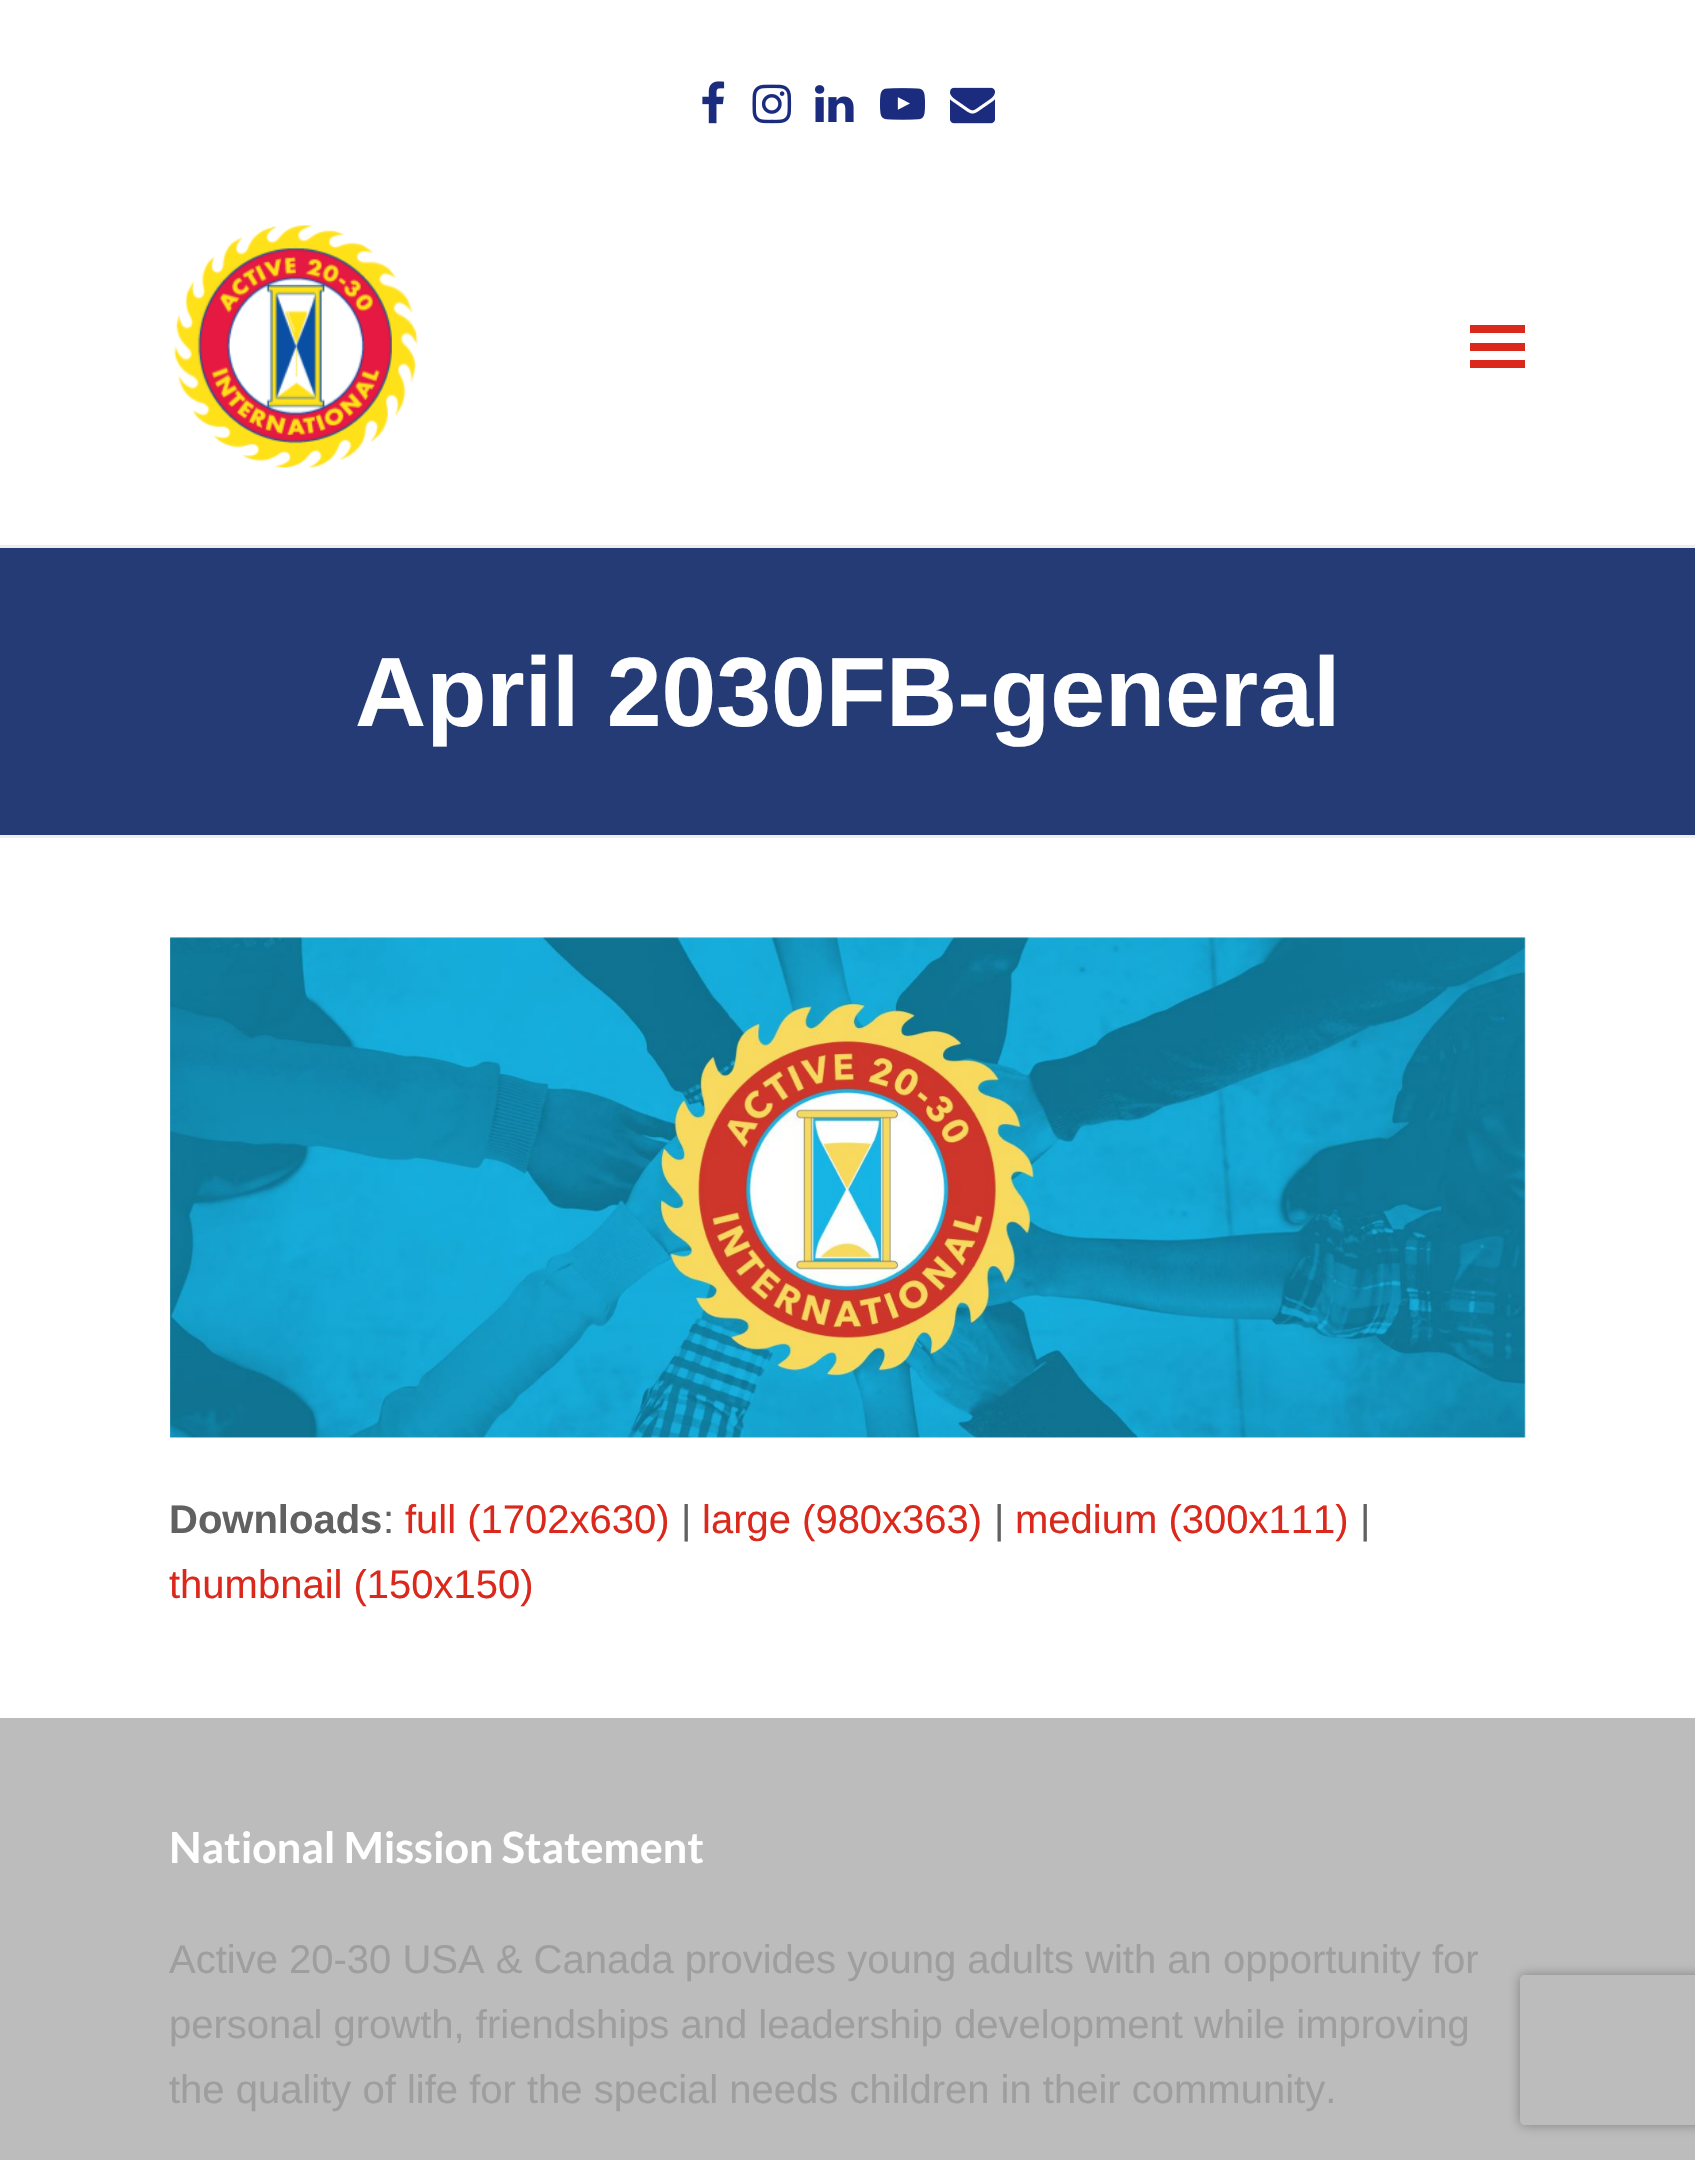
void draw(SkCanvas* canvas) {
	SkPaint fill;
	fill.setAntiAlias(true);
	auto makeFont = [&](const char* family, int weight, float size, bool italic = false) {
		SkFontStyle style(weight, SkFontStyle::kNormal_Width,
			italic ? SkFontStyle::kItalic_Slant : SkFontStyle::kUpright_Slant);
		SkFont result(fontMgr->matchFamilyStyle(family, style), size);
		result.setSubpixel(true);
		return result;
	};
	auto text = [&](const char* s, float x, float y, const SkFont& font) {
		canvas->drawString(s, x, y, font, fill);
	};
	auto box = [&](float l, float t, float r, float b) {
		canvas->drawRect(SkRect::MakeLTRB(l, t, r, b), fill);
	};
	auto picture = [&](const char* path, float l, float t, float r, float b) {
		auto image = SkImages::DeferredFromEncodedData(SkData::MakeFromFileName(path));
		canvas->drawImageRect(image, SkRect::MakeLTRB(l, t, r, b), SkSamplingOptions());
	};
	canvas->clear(0xFFFFFFFF);
	picture("image0.png", 702, 81, 725, 124);
	picture("image1.png", 752, 84, 792, 124);
	picture("image2.png", 815, 85, 854, 122);
	picture("image3.png", 880, 88, 925, 120);
	picture("image4.png", 950, 87, 995, 124);
	picture("image5.png", 173, 225, 418, 468);
	fill.setColor(0xFFDA291C);
	box(1470, 343, 1525, 351);
	box(1470, 325, 1525, 333);
	box(1470, 360, 1525, 368);
	fill.setColor(0xFF243B76);
	box(0, 548, 1695, 835);
	fill.setColor(0xFFEEEEEE);
	box(0, 545, 1695, 548);
	box(0, 835, 1695, 838);
	picture("image6.png", 170, 937, 1526, 1438);
	fill.setColor(0xFFBCBCBC);
	box(0, 1718, 1695, 2160);
	canvas->save();
	canvas->clipPath(SkPathBuilder(SkPathFillType::kEvenOdd).moveTo(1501, 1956).lineTo(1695, 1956).lineTo(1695, 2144).lineTo(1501, 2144).close().moveTo(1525, 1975).lineTo(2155, 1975).cubicTo(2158, 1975, 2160, 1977, 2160, 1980).lineTo(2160, 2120).cubicTo(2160, 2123, 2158, 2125, 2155, 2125).lineTo(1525, 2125).cubicTo(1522, 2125, 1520, 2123, 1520, 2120).lineTo(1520, 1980).cubicTo(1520, 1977, 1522, 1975, 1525, 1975).close().detach(), true);
	fill.setColor(0xFF808080);
	fill.setMaskFilter(SkMaskFilter::MakeBlur(kNormal_SkBlurStyle, 6));
	canvas->drawRoundRect(SkRect::MakeLTRB(1520, 1975, 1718, 2125), 5, 5, fill);
	fill.setMaskFilter(nullptr);
	canvas->restore();
	auto font1 = makeFont("Liberation Sans", 700, 98.5f);
	fill.setColor(0xFFFFFFFF);
	text("April 2030FB-general", 355, 726, font1);
	auto font2 = makeFont("Liberation Sans", 700, 40);
	fill.setColor(0xFF616161);
	text("Downloads", 169, 1533, font2);
	auto font3 = makeFont("Liberation Sans", 400, 40);
	text(":", 383, 1533, font3);
	fill.setColor(0xFFDA291C);
	text("full (1702x630)", 405, 1533, font3);
	fill.setColor(0xFF616161);
	text("|", 681, 1533, font3);
	fill.setColor(0xFFDA291C);
	text("large (980x363)", 702, 1533, font3);
	fill.setColor(0xFF616161);
	text("|", 994, 1533, font3);
	fill.setColor(0xFFDA291C);
	text("medium (300x111)", 1015, 1533, font3);
	fill.setColor(0xFF616161);
	text("|", 1360, 1533, font3);
	fill.setColor(0xFFDA291C);
	text("thumbnail (150x150)", 169, 1598, font3);
	auto font4 = makeFont("Lato", 700, 43);
	fill.setColor(0xFFFFFFFF);
	text("National Mission Statement", 169, 1863, font4);
	fill.setColor(0xFF9E9E9E);
	text("Active 20-30 USA & Canada provides young adults with an opportunity for", 169, 1973, font3);
	text("personal growth, friendships and leadership development while improving", 169, 2038, font3);
	text("the quality of life for the special needs children in their community.", 169, 2103, font3);
}
